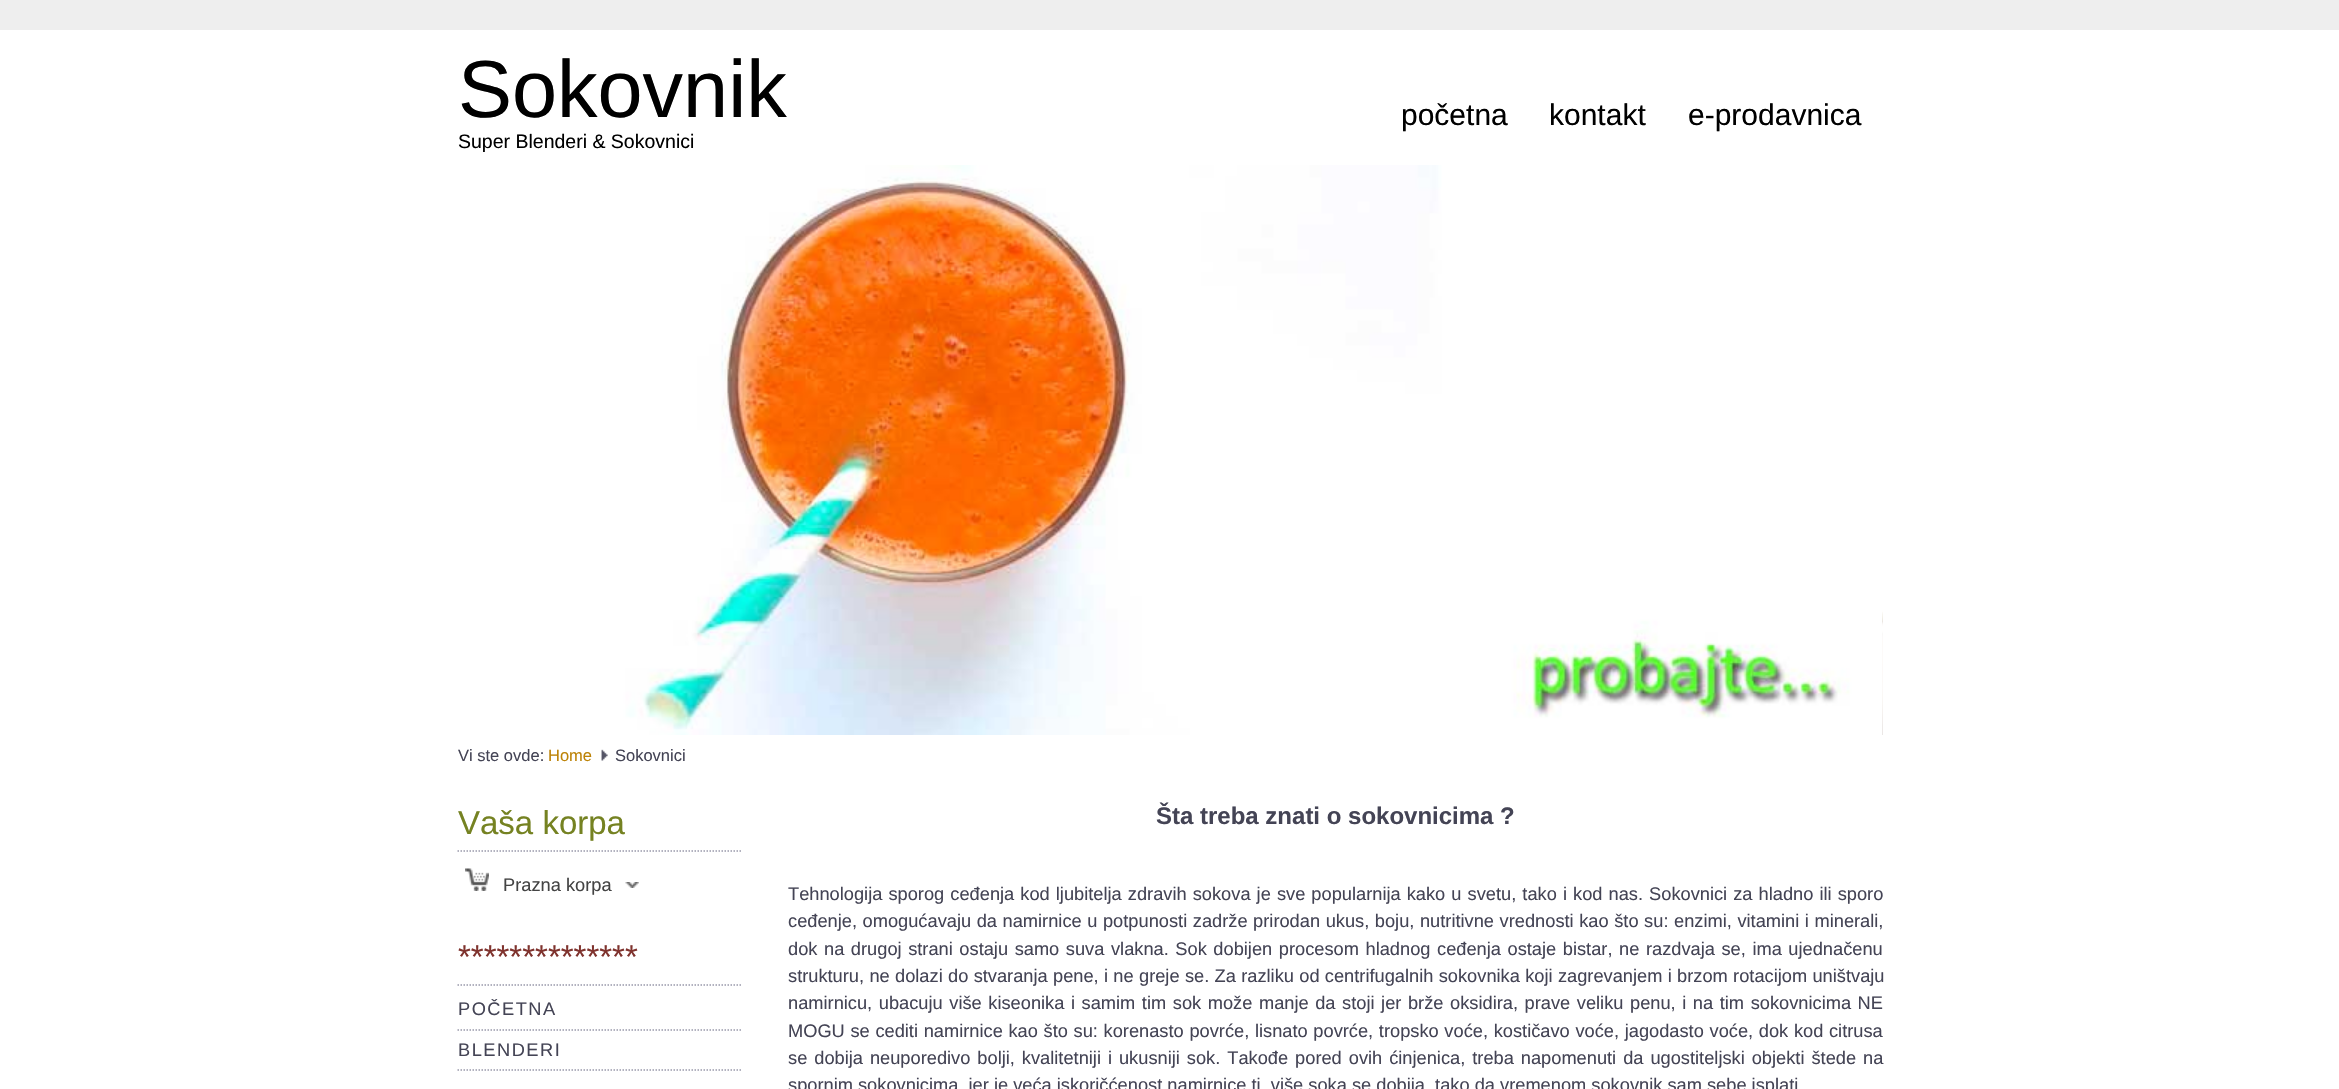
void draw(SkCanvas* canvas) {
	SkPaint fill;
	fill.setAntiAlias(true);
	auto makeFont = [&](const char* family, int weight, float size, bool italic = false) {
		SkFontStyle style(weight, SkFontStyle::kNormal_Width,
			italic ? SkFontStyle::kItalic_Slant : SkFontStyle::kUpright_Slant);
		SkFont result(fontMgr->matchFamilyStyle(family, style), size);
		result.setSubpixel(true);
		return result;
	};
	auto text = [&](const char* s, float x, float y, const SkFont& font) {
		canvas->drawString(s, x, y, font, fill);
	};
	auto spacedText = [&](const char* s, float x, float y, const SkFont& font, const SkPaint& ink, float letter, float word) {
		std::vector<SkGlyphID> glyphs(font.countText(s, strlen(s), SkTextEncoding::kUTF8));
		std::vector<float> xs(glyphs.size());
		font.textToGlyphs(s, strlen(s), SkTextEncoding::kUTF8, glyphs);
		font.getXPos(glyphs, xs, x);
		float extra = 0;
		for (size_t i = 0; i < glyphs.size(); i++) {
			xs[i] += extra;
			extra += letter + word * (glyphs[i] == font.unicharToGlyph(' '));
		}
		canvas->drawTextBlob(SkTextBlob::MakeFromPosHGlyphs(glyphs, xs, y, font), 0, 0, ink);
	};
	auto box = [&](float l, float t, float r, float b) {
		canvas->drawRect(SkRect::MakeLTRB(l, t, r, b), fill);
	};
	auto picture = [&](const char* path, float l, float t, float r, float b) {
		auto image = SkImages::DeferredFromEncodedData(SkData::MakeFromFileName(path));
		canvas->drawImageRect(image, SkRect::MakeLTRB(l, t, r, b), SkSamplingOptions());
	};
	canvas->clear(0xFFFFFFFF);
	fill.setColor(0xFFEEEEEE);
	box(0, 0, 2339, 30);
	picture("image1.png", 1882, 165, 1883, 735);
	picture("image2.png", 1882, 165, 1883, 735);
	picture("image0.png", 505, 165, 1883, 735);
	picture("image3.png", 601, 749, 608, 761);
	fill.setStyle(SkPaint::kStroke_Style);
	fill.setStrokeWidth(1.5f);
	fill.setColor(0xFF9999AA);
	fill.setPathEffect(SkDashPathEffect::Make({{1.5f, 1.5f}}, 0));
	canvas->drawPath(SkPathBuilder().moveTo(457.5f, 851).lineTo(742.5f, 851).detach(), fill);
	fill.setPathEffect(nullptr);
	picture("image4.png", 465, 868, 489, 891);
	picture("image5.png", 625, 882, 639, 888);
	fill.setPathEffect(SkDashPathEffect::Make({{1.5f, 1.5f}}, 0));
	canvas->drawPath(SkPathBuilder().moveTo(457.5f, 985).lineTo(742.5f, 985).detach(), fill);
	fill.setPathEffect(nullptr);
	fill.setPathEffect(SkDashPathEffect::Make({{1.5f, 1.5f}}, 0));
	canvas->drawPath(SkPathBuilder().moveTo(457.5f, 1030).lineTo(742.5f, 1030).detach(), fill);
	fill.setPathEffect(nullptr);
	fill.setPathEffect(SkDashPathEffect::Make({{1.5f, 1.5f}}, 0));
	canvas->drawPath(SkPathBuilder().moveTo(457.5f, 1070).lineTo(742.5f, 1070).detach(), fill);
	fill.setPathEffect(nullptr);
	auto font1 = makeFont("Liberation Sans", 400, 81);
	fill.setStyle(SkPaint::kFill_Style);
	fill.setColor(0xFF000000);
	text("Sokovnik", 458, 117, font1);
	auto font2 = makeFont("Liberation Sans", 400, 19.5f);
	text("Super Blenderi & Sokovnici", 458, 148, font2);
	auto font3 = makeFont("Liberation Sans", 400, 30);
	text("početna", 1401, 125, font3);
	text("kontakt", 1549, 125, font3);
	text("e-prodavnica", 1688, 125, font3);
	auto font4 = makeFont("Liberation Sans", 400, 16.5f);
	fill.setColor(0xFF444455);
	text("Vi ste ovde:", 458, 761, font4);
	fill.setColor(0xFFBD8307);
	text("Home", 548, 761, font4);
	fill.setColor(0xFF444455);
	text("Sokovnici", 615, 761, font4);
	auto font5 = makeFont("Liberation Sans", 400, 33);
	fill.setColor(0xFF758222);
	text("Vaša korpa", 458, 834, font5);
	auto font6 = makeFont("Liberation Sans", 400, 18.25f);
	fill.setColor(0xFF444444);
	text("Prazna korpa", 503, 891, font6);
	fill.setColor(0xFF7F332E);
	text("**************", 458, 968, font5);
	fill.setColor(0xFF444455);
	spacedText("POČETNA", 458, 1015, font6, fill, 1.5f, 0);
	spacedText("BLENDERI", 458, 1056, font6, fill, 1.5f, 0);
	auto font7 = makeFont("Liberation Sans", 700, 24);
	text("Šta treba znati o sokovnicima ?", 1156, 824, font7);
	spacedText("Tehnologija sporog ceđenja kod ljubitelja zdravih sokova je sve popularnija kako u svetu, tako i kod nas. Sokovnici za hladno ili sporo", 788, 900, font6, fill, 0, 1);
	spacedText("ceđenje, omogućavaju da namirnice u potpunosti zadrže prirodan ukus, boju, nutritivne vrednosti kao što su: enzimi, vitamini i minerali,", 788, 927, font6, fill, 0, 0.5f);
	spacedText("dok na drugoj strani ostaju samo suva vlakna. Sok dobijen procesom hladnog ceđenja ostaje bistar, ne razdvaja se, ima ujednačenu", 788, 955, font6, fill, 0, 1.5f);
	spacedText("strukturu, ne dolazi do stvaranja pene, i ne greje se. Za razliku od centrifugalnih sokovnika koji zagrevanjem i brzom rotacijom uništvaju", 788, 982, font6, fill, 0, 0.25f);
	spacedText("namirnicu, ubacuju više kiseonika i samim tim sok može manje da stoji jer brže oksidira, prave veliku penu, i na tim sokovnicima NE", 788, 1009, font6, fill, 0, 1.5f);
	spacedText("MOGU se cediti namirnice kao što su: korenasto povrće, lisnato povrće, tropsko voće, kostičavo voće, jagodasto voće, dok kod citrusa", 788, 1037, font6, fill, 0, 0.6f);
	spacedText("se dobija neuporedivo bolji, kvalitetniji i ukusniji sok. Takođe pored ovih ćinjenica, treba napomenuti da ugostiteljski objekti štede na", 788, 1064, font6, fill, 0, 1.9f);
	text("spornim sokovnicima, jer je veća iskoričćenost namirnice tj. više soka se dobija, tako da vremenom sokovnik sam sebe isplati", 788, 1091, font6);
}
